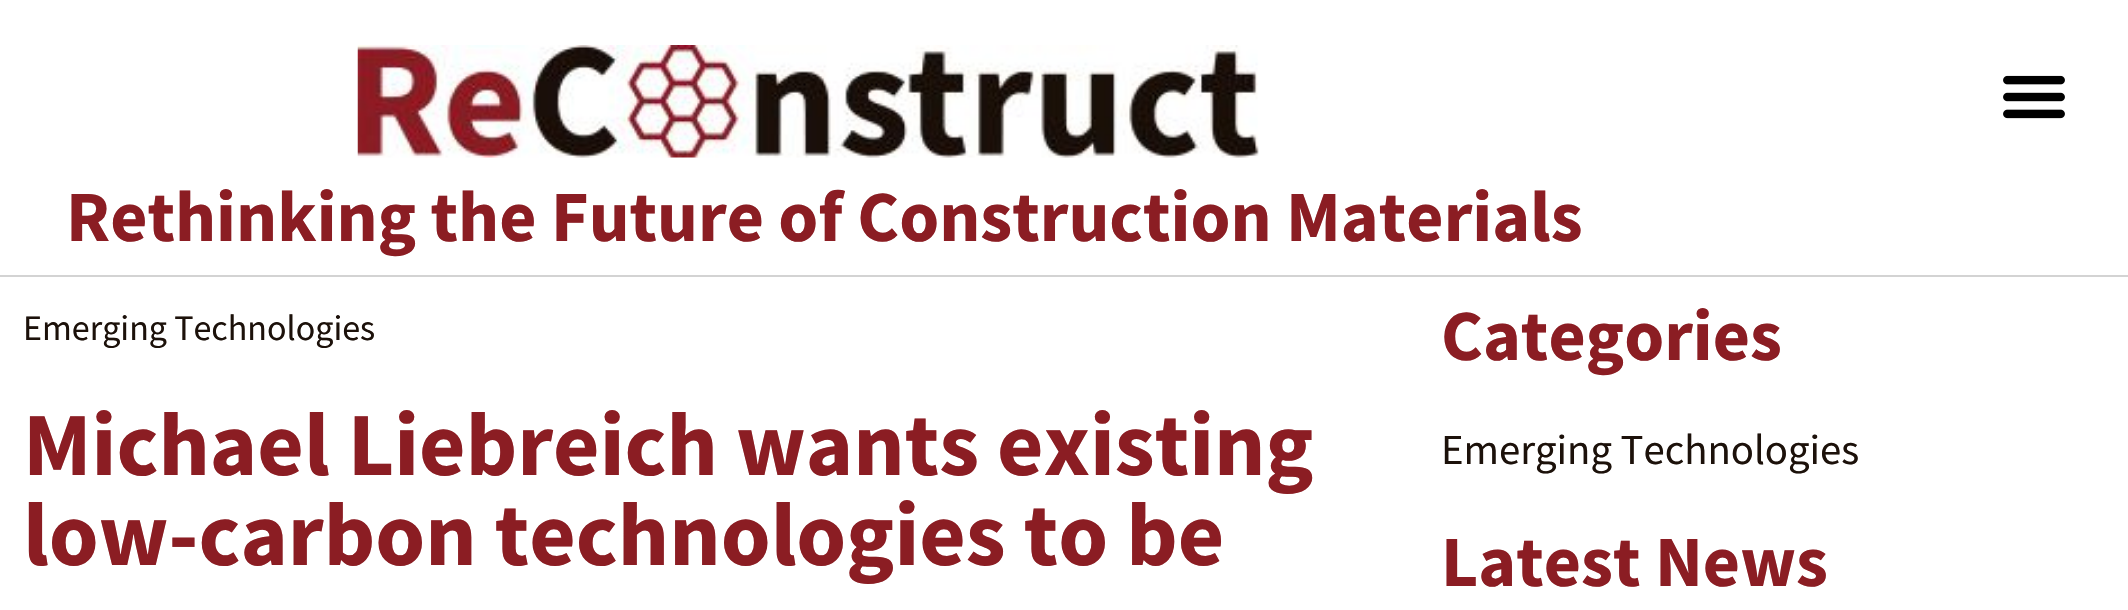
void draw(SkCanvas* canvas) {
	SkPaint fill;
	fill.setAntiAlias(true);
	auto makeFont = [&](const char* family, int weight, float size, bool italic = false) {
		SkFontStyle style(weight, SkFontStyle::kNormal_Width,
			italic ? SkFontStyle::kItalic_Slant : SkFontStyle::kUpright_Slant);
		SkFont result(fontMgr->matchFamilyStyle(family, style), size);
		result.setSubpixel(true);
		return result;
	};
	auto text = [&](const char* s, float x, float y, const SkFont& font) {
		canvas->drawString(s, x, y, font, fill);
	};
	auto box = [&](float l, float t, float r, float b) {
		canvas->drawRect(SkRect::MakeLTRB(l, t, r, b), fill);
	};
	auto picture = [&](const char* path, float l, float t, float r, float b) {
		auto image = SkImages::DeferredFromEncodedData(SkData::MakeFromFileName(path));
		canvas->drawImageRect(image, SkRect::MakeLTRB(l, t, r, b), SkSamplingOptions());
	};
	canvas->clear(0xFFFFFFFF);
	fill.setColor(0xFFD3D3D3);
	box(0, 275, 2128, 277);
	picture("image0.png", 357, 45, 1259, 158);
	picture("image1.png", 2003, 75, 2065, 119);
	auto font1 = makeFont("Source Sans Pro", 700, 72);
	fill.setColor(0xFF8B1D23);
	text("Rethinking the Future of Construction Materials", 66, 241, font1);
	auto font2 = makeFont("Source Sans Pro", 400, 36);
	fill.setColor(0xFF1C110A);
	text("Emerging Technologies", 23, 340, font2);
	auto font3 = makeFont("Source Sans Pro", 700, 90);
	fill.setColor(0xFF8B1D23);
	text("Michael Liebreich wants existing", 23, 475, font3);
	text("low-carbon technologies to be", 23, 565, font3);
	text("Categories", 1441, 360, font1);
	auto font4 = makeFont("Source Sans Pro", 400, 42.75f);
	fill.setColor(0xFF1C110A);
	text("Emerging Technologies", 1441, 464, font4);
	fill.setColor(0xFF8B1D23);
	text("Latest News", 1441, 586, font1);
}
